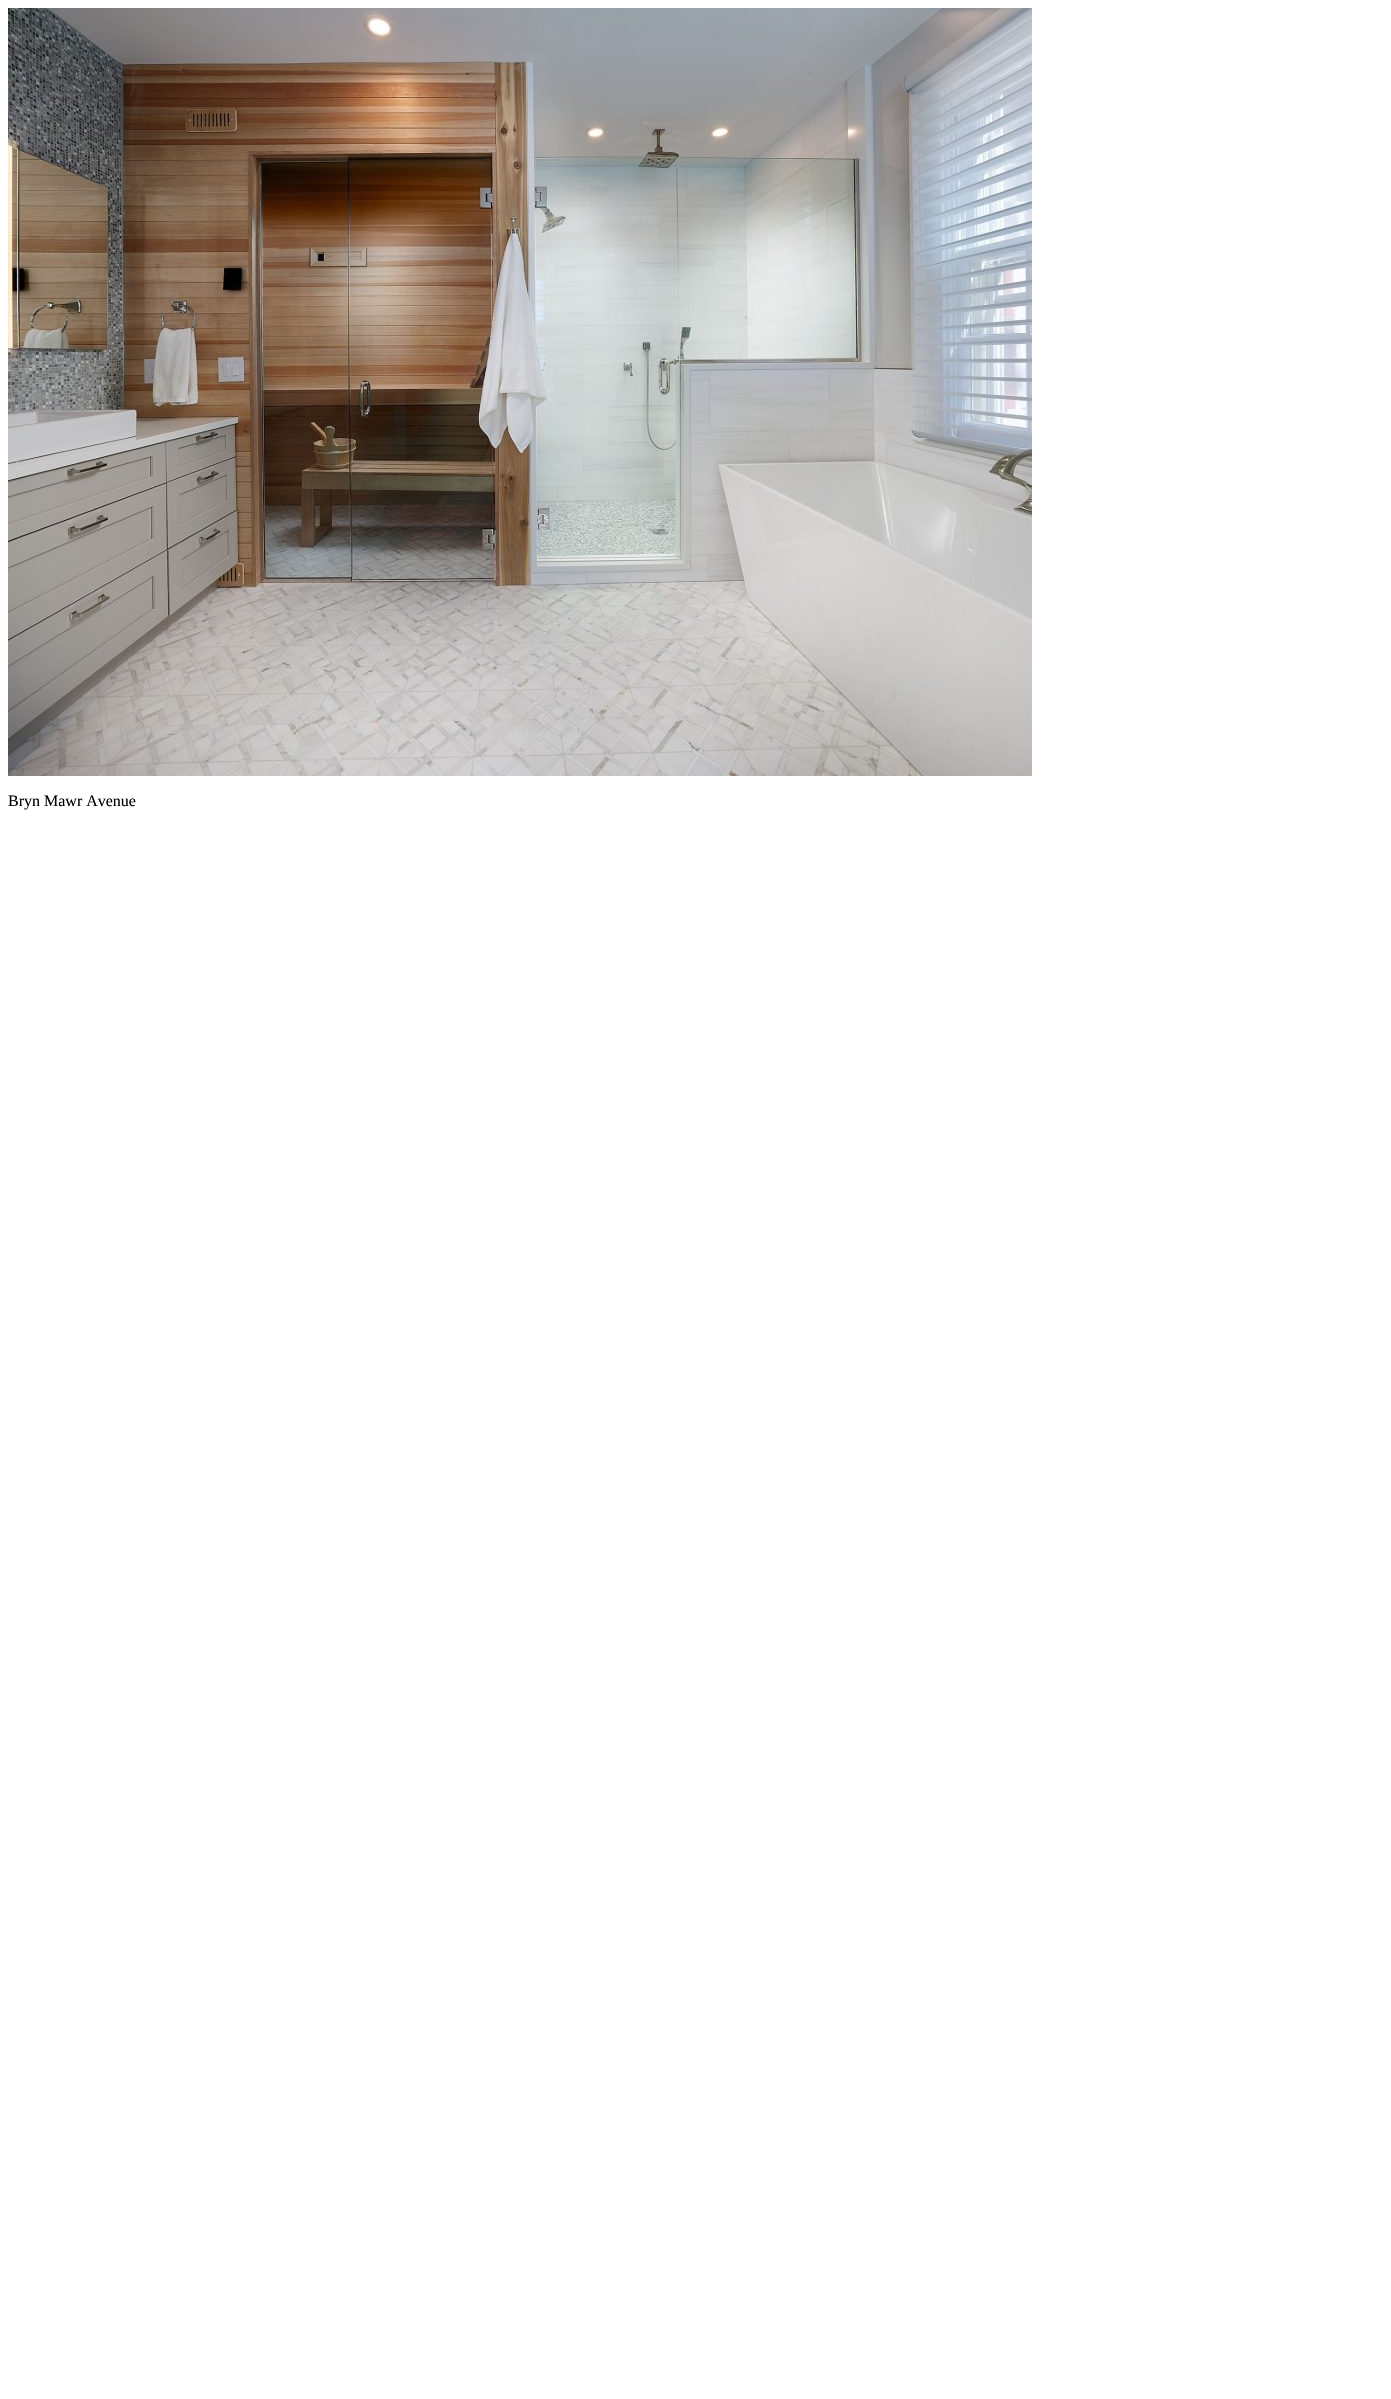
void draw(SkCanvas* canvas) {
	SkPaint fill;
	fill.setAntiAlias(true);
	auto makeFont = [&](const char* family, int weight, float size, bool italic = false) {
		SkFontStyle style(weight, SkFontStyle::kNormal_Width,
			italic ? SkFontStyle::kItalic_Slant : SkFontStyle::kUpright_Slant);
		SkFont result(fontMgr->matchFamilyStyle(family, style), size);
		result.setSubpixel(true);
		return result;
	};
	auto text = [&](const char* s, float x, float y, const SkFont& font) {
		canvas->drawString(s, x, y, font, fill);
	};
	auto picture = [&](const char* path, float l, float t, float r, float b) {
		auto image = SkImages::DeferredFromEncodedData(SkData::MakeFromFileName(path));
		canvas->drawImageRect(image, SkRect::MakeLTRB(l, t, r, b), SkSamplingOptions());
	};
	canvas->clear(0xFFFFFFFF);
	picture("image0.png", 8, 8, 1032, 776);
	auto font1 = makeFont("Liberation Serif", 400, 16);
	fill.setColor(0xFF000000);
	text("Bryn Mawr Avenue", 8, 806, font1);
}
